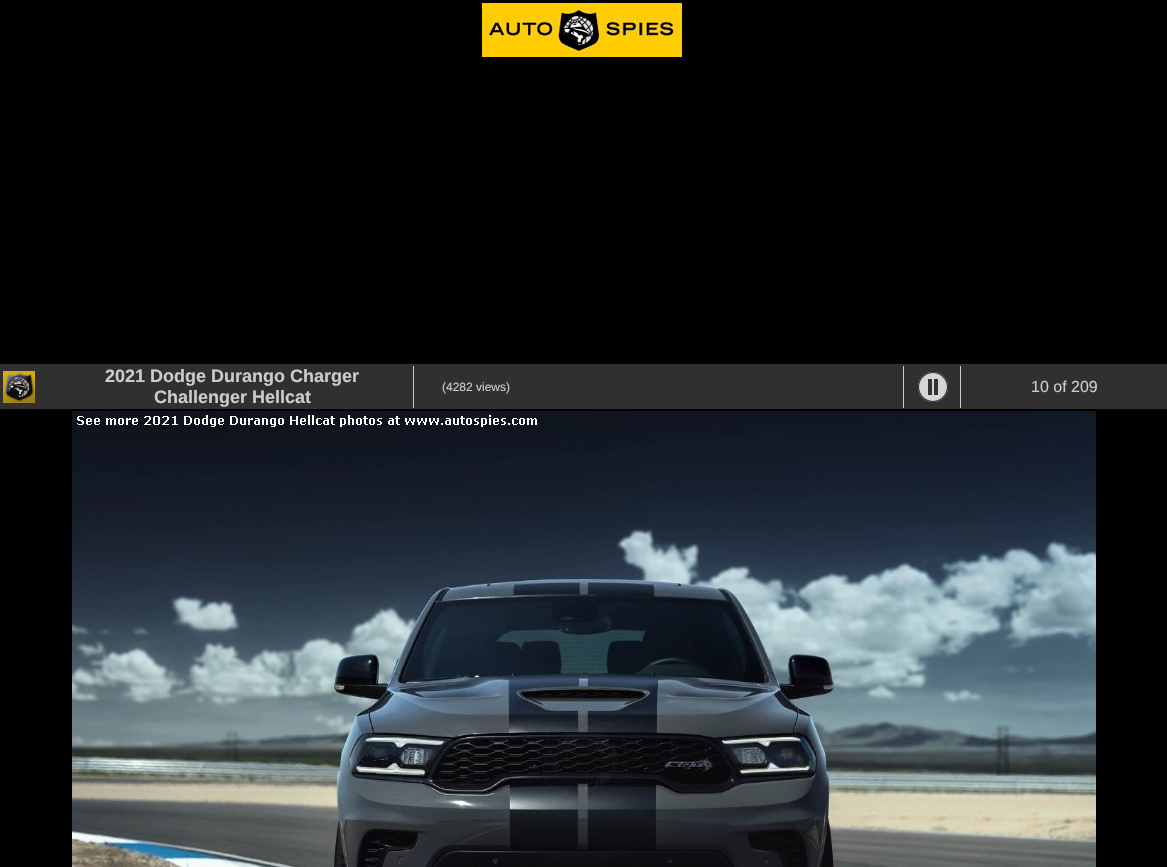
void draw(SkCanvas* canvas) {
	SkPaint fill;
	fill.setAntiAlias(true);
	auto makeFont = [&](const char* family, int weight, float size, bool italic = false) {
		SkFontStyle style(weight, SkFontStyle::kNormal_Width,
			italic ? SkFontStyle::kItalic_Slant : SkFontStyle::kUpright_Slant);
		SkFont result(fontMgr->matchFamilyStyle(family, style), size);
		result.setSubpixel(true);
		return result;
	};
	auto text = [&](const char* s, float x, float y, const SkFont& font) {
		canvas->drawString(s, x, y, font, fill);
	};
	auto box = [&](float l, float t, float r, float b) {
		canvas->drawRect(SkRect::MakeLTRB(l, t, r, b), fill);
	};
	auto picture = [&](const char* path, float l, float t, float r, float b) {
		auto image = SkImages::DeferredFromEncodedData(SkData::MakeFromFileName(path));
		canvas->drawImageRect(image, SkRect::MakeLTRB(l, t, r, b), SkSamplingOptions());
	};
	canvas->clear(0xFF000000);
	picture("image0.png", 482, 3, 682, 57);
	fill.setColor(0xFF303030);
	box(0, 364, 1167, 409);
	picture("image1.png", 3, 371, 35, 403);
	fill.setColor(0xFFCCCCCC);
	box(413, 366, 414, 408);
	box(903, 366, 904, 408);
	box(960, 366, 961, 408);
	picture("image2.png", 918, 372, 948, 402);
	picture("image3.png", 72, 411, 1096, 867);
	auto font1 = makeFont("Liberation Sans", 700, 18);
	text("2021 Dodge Durango Charger", 105, 382, font1);
	text("Challenger Hellcat", 154, 403, font1);
	auto font2 = makeFont("Liberation Sans", 400, 12);
	text("(4282 views)", 442, 391, font2);
	auto font3 = makeFont("Liberation Sans", 400, 16);
	text("10 of 209", 1031, 392, font3);
}
